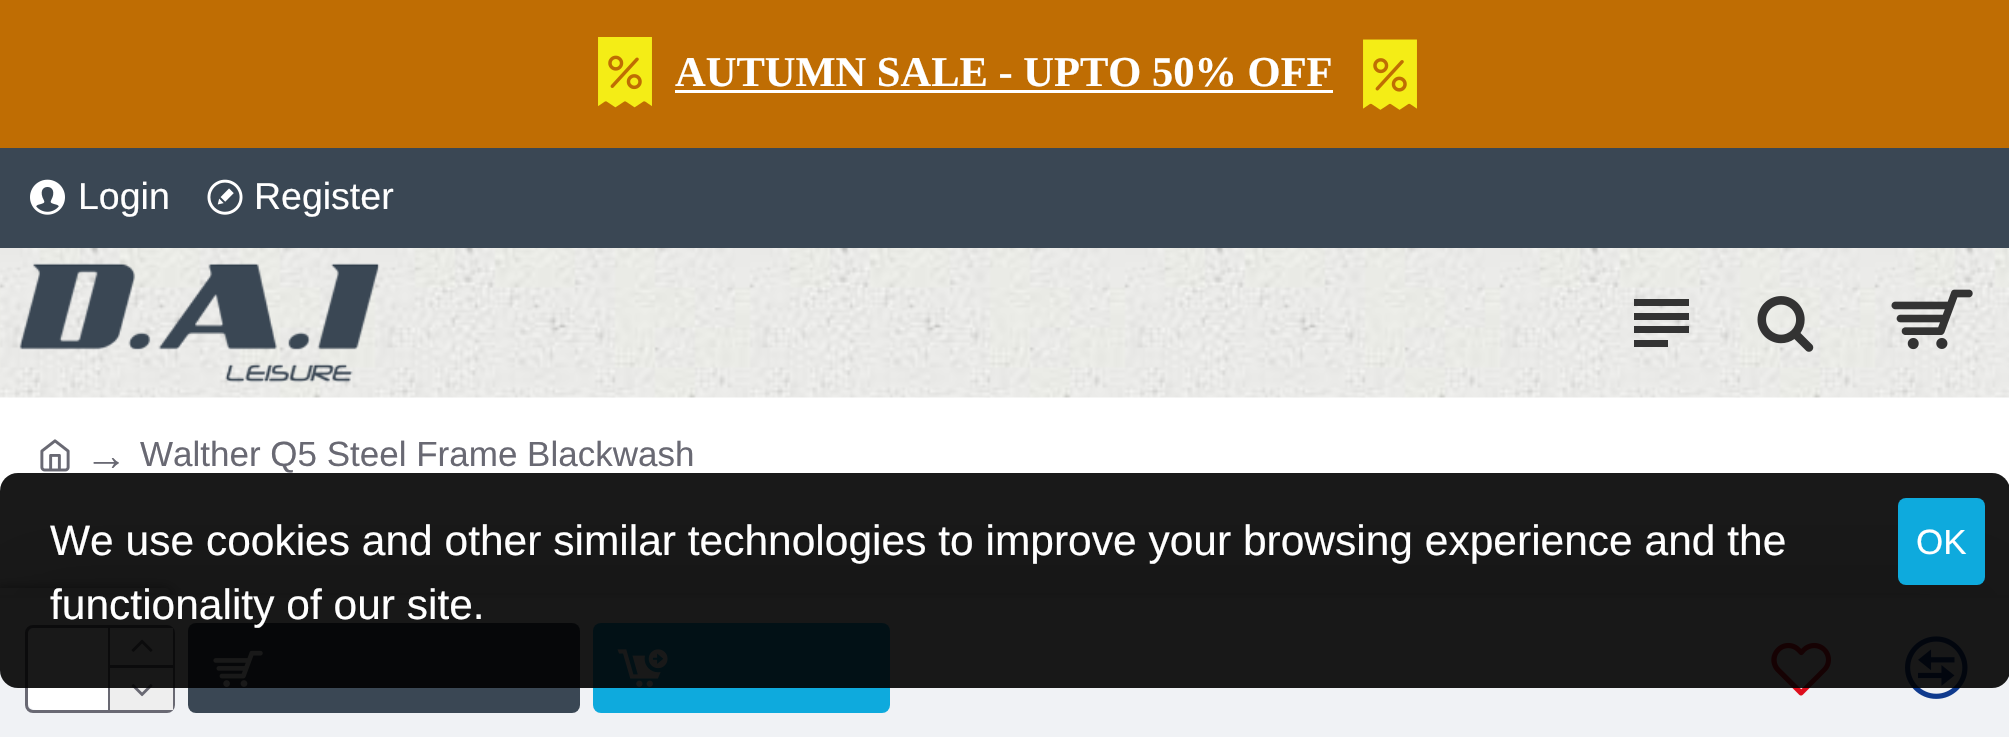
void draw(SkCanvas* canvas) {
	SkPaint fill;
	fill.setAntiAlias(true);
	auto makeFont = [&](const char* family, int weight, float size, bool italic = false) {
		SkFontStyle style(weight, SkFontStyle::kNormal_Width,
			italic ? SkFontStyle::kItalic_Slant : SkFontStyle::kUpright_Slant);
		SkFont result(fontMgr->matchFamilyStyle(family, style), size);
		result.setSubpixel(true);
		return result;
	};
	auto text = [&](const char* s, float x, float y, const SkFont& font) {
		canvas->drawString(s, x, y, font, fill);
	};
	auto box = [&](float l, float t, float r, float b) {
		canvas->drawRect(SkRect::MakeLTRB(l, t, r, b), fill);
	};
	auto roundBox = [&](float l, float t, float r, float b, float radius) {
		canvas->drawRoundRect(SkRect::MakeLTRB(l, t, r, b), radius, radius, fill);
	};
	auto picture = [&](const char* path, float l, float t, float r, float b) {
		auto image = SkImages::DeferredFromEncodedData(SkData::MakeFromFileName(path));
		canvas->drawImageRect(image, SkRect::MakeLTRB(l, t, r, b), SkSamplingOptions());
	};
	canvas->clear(0xFFF8F8F8);
	fill.setColor(0xFFBF6D03);
	box(0, 0, 2009, 148);
	picture("image0.png", 598, 37, 652, 108);
	fill.setColor(0xFFFFFFFF);
	box(675, 90, 1333, 93);
	picture("image1.png", 1363, 39, 1417, 110);
	fill.setColor(0xFF3A4754);
	box(0, 148, 2009, 248);
	picture("image2.png", 30, 179, 65, 215);
	picture("image3.png", 207, 179, 243, 215);
	fill.setColor(0xFFFFFFFF);
	box(0, 397, 2009, 513);
	picture("image4.png", 0, 248, 2009, 398);
	picture("image5.png", 19, 263, 380, 383);
	fill.setColor(0xFF333333);
	canvas->drawPath(SkPathBuilder().moveTo(1634, 299).lineTo(1689, 299).lineTo(1689, 306).lineTo(1634, 306).close().moveTo(1634, 333).lineTo(1634, 326).lineTo(1689, 326).lineTo(1689, 333).close().moveTo(1689, 313).lineTo(1689, 320).lineTo(1634, 320).lineTo(1634, 313).close().moveTo(1668, 340).lineTo(1668, 347).lineTo(1634, 347).lineTo(1634, 340).close().detach(), fill);
	picture("image6.png", 1757, 296, 1814, 352);
	picture("image7.png", 1891, 289, 1973, 350);
	picture("image8.png", 40, 439, 70, 472);
	fill.setColor(0x26000000);
	fill.setMaskFilter(SkMaskFilter::MakeBlur(kNormal_SkBlurStyle, 37.5f));
	canvas->drawRect(SkRect::MakeLTRB(13, 583, 1998, 700), fill);
	fill.setMaskFilter(nullptr);
	canvas->save();
	canvas->clipPath(SkPathBuilder(SkPathFillType::kEvenOdd).moveTo(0, 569).lineTo(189, 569).lineTo(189, 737).lineTo(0, 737).close().moveTo(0, 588).lineTo(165, 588).cubicTo(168, 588, 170, 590, 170, 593).lineTo(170, 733).cubicTo(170, 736, 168, 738, 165, 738).lineTo(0, 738).cubicTo(-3, 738, -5, 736, -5, 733).lineTo(-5, 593).cubicTo(-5, 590, -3, 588, 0, 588).close().detach(), true);
	fill.setColor(0xFF808080);
	fill.setMaskFilter(SkMaskFilter::MakeBlur(kNormal_SkBlurStyle, 6));
	canvas->drawRoundRect(SkRect::MakeLTRB(-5, 588, 170, 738), 5, 5, fill);
	fill.setMaskFilter(nullptr);
	canvas->restore();
	fill.setColor(0xFFF0F2F5);
	box(0, 598, 2009, 737);
	fill.setColor(0xFFE2E2E2);
	box(0, 595, 2009, 598);
	fill.setStyle(SkPaint::kStroke_Style);
	fill.setStrokeWidth(3);
	fill.setColor(0xFF696973);
	canvas->drawRoundRect(SkRect::MakeLTRB(26.5f, 626.5f, 173.5f, 711.5f), 6.5f, 6.5f, fill);
	fill.setStyle(SkPaint::kFill_Style);
	fill.setColor(0xFFFFFFFF);
	roundBox(28, 628, 173, 710, 8);
	fill.setColor(0xFF696973);
	box(108, 628, 110, 710);
	fill.setColor(0xFFEEEEEE);
	box(110, 628, 173, 665);
	fill.setColor(0xFF696973);
	box(110, 665, 173, 668);
	picture("image9.png", 131, 639, 153, 652);
	fill.setColor(0xFFEEEEEE);
	box(110, 668, 173, 710);
	picture("image10.png", 131, 684, 153, 697);
	fill.setColor(0xFF3A4754);
	roundBox(188, 623, 580, 713, 8);
	picture("image11.png", 213, 650, 263, 687);
	fill.setColor(0xFF0EAADD);
	roundBox(593, 623, 890, 713, 8);
	picture("image12.png", 617, 649, 668, 687);
	picture("image13.png", 1771, 642, 1831, 696);
	picture("image14.png", 1905, 636, 1968, 699);
	fill.setColor(0xE6000000);
	roundBox(0, 473, 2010, 688, 18);
	fill.setColor(0xFF0EAADD);
	roundBox(1898, 498, 1985, 585, 8);
	auto font1 = makeFont("Liberation Serif", 700, 42.5f);
	fill.setColor(0xFFFFFFFF);
	text("AUTUMN SALE - UPTO 50% OFF", 675, 86, font1);
	auto font2 = makeFont("Liberation Sans", 400, 37.5f);
	text("Login", 78, 209, font2);
	text("Register", 254, 209, font2);
	auto font3 = makeFont("Liberation Sans", 400, 42.5f);
	fill.setColor(0xFF696973);
	text("→", 85, 470, font3);
	auto font4 = makeFont("Liberation Sans", 400, 35);
	text("Walther Q5 Steel Frame Blackwash", 140, 466, font4);
	fill.setColor(0xFFFFFFFF);
	text("We use cookies and other similar technologies to improve your browsing experience and the", 50, 555, font3);
	text("functionality of our site.", 50, 619, font3);
	text("OK", 1916, 554, font4);
}
